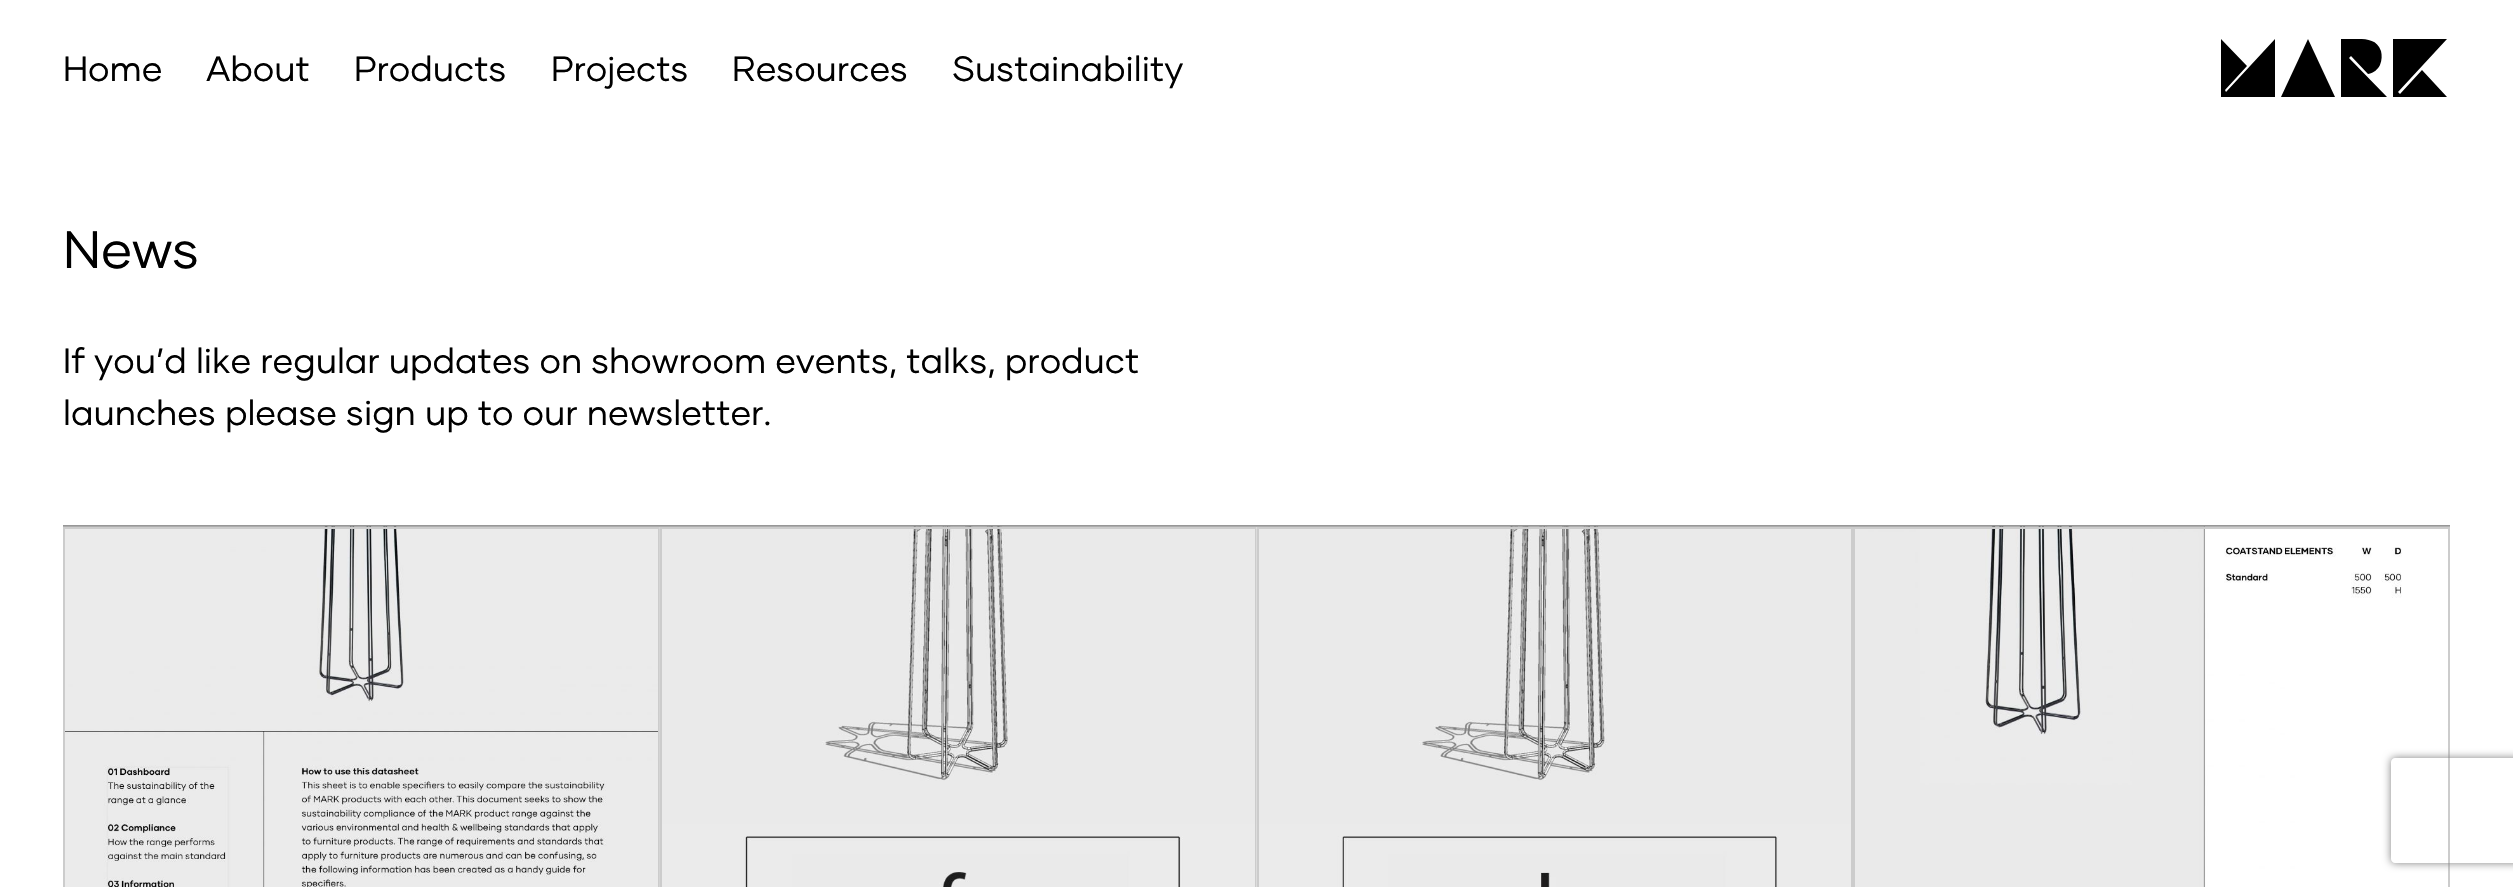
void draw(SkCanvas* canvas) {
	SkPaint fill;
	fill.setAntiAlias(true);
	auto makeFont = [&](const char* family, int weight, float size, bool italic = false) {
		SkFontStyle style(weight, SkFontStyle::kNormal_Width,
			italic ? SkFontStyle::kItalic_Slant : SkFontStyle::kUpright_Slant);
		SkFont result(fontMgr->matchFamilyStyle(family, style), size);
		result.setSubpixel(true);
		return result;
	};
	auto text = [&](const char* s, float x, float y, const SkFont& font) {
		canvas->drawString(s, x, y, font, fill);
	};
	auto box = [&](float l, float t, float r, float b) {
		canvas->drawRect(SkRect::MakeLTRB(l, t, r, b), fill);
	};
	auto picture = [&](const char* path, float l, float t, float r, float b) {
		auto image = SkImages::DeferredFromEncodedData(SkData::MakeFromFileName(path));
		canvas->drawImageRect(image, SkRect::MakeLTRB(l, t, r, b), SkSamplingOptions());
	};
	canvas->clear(0xFFFFFFFF);
	fill.setColor(0xFF000000);
	canvas->drawPath(SkPathBuilder(SkPathFillType::kEvenOdd).moveTo(2281, 97).lineTo(2335, 97).lineTo(2308, 39).close().detach(), fill);
	canvas->drawPath(SkPathBuilder(SkPathFillType::kEvenOdd).moveTo(2221, 39).lineTo(2221, 97).lineTo(2275, 97).lineTo(2275, 39).lineTo(2226, 92).lineTo(2225, 90).lineTo(2247, 66).close().detach(), fill);
	canvas->drawPath(SkPathBuilder(SkPathFillType::kEvenOdd).moveTo(2393, 39).lineTo(2393, 97).lineTo(2447, 97).lineTo(2422, 70).lineTo(2400, 94).lineTo(2398, 92).lineTo(2447, 39).close().detach(), fill);
	canvas->drawPath(SkPathBuilder(SkPathFillType::kEvenOdd).moveTo(2349, 58).lineTo(2351, 56).lineTo(2368, 74).cubicTo(2374, 73, 2378, 69, 2380, 65).cubicTo(2382, 60, 2382, 55, 2381, 51).cubicTo(2377, 40, 2368, 39, 2358, 39).lineTo(2341, 39).lineTo(2341, 97).lineTo(2387, 97).close().detach(), fill);
	fill.setColor(0xFF979797);
	box(63, 525, 2450, 527);
	picture("image0.png", 63, 526, 660, 887);
	fill.setStyle(SkPaint::kStroke_Style);
	fill.setStrokeWidth(2);
	fill.setColor(0xFFCCCCCC);
	canvas->drawRect(SkRect::MakeLTRB(64, 528, 659, 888), fill);
	picture("image1.png", 659, 526, 1257, 887);
	canvas->drawRect(SkRect::MakeLTRB(661, 528, 1256, 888), fill);
	picture("image2.png", 1256, 526, 1854, 887);
	canvas->drawRect(SkRect::MakeLTRB(1258, 528, 1852, 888), fill);
	picture("image3.png", 1853, 526, 2450, 887);
	canvas->drawRect(SkRect::MakeLTRB(1854, 528, 2449, 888), fill);
	canvas->save();
	canvas->clipPath(SkPathBuilder(SkPathFillType::kEvenOdd).moveTo(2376, 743).lineTo(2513, 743).lineTo(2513, 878).lineTo(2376, 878).close().moveTo(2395, 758).lineTo(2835, 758).cubicTo(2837, 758, 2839, 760, 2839, 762).lineTo(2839, 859).cubicTo(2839, 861, 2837, 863, 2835, 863).lineTo(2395, 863).cubicTo(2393, 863, 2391, 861, 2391, 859).lineTo(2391, 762).cubicTo(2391, 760, 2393, 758, 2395, 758).close().detach(), true);
	fill.setStyle(SkPaint::kFill_Style);
	fill.setColor(0xFF808080);
	fill.setMaskFilter(SkMaskFilter::MakeBlur(kNormal_SkBlurStyle, 4.5f));
	canvas->drawRoundRect(SkRect::MakeLTRB(2391, 758, 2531, 863), 4, 4, fill);
	fill.setMaskFilter(nullptr);
	canvas->restore();
	auto font1 = makeFont("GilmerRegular", 400, 35);
	fill.setColor(0xFF000000);
	text("Home", 63, 81, font1);
	text("About", 206, 81, font1);
	text("Products", 354, 81, font1);
	text("Projects", 551, 81, font1);
	text("Resources", 732, 81, font1);
	text("Sustainability", 952, 81, font1);
	auto font2 = makeFont("GilmerRegular", 400, 52.5f);
	text("News", 63, 268, font2);
	text("If you’d like regular updates on showroom events, talks, product", 63, 373, font1);
	text("launches please sign up to our newsletter.", 63, 425, font1);
}
